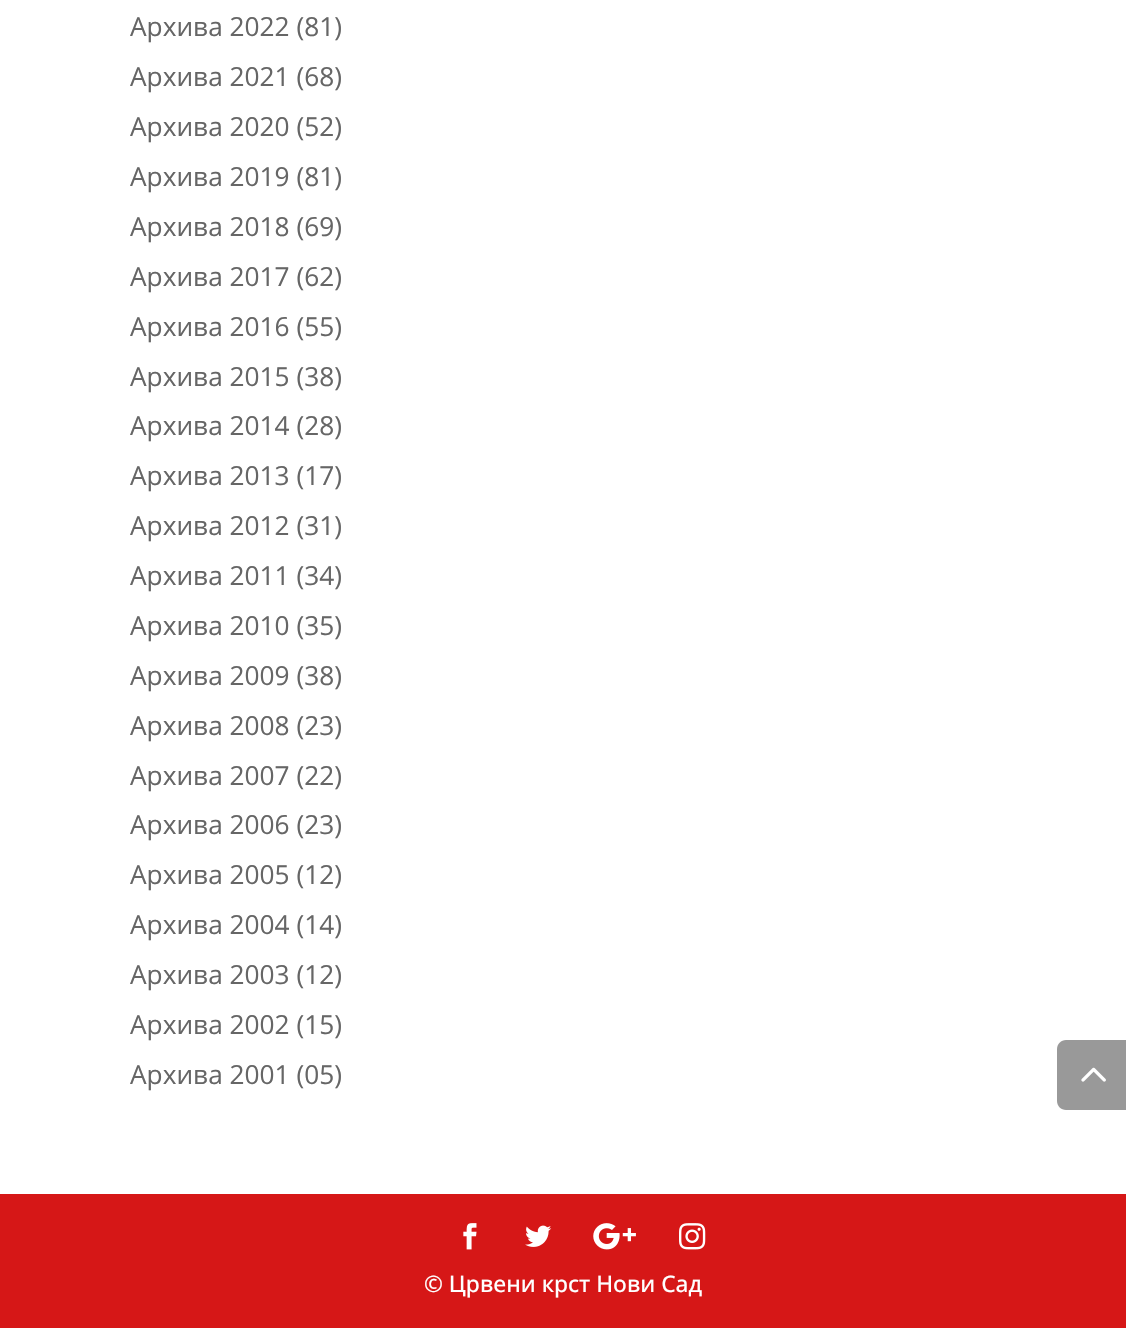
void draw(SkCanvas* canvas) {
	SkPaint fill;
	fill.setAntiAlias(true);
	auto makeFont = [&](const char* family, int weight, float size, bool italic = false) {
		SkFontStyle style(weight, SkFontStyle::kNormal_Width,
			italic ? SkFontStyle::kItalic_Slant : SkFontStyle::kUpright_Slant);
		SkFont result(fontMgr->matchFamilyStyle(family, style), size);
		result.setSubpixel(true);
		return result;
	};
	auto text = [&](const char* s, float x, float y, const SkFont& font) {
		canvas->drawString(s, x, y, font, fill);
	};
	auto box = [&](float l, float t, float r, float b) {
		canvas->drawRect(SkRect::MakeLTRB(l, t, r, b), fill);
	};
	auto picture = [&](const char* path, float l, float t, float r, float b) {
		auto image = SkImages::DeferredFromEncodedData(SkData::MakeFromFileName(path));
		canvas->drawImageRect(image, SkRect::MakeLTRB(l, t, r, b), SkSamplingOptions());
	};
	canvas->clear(0xFFFFFFFF);
	fill.setColor(0xFF999999);
	canvas->drawPath(SkPathBuilder().moveTo(1066, 1040).lineTo(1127, 1040).lineTo(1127, 1110).lineTo(1066, 1110).cubicTo(1061, 1110, 1057, 1106, 1057, 1101).lineTo(1057, 1049).cubicTo(1057, 1044, 1061, 1040, 1066, 1040).close().detach(), fill);
	picture("image0.png", 1081, 1067, 1106, 1082);
	fill.setColor(0xFFD61717);
	box(0, 1194, 1126, 1328);
	picture("image1.png", 463, 1223, 477, 1250);
	picture("image2.png", 525, 1225, 552, 1247);
	picture("image3.png", 593, 1223, 636, 1250);
	picture("image4.png", 679, 1223, 706, 1250);
	auto font1 = makeFont("Open Sans", 400, 26.25f);
	fill.setColor(0xFF666666);
	text("Архива 2022 (81)", 130, 36, font1);
	text("Архива 2021 (68)", 130, 86, font1);
	text("Архива 2020 (52)", 130, 136, font1);
	text("Архива 2019 (81)", 130, 186, font1);
	text("Архива 2018 (69)", 130, 236, font1);
	text("Архива 2017 (62)", 130, 286, font1);
	text("Архива 2016 (55)", 130, 336, font1);
	text("Архива 2015 (38)", 130, 386, font1);
	text("Архива 2014 (28)", 130, 435, font1);
	text("Архива 2013 (17)", 130, 485, font1);
	text("Архива 2012 (31)", 130, 535, font1);
	text("Архива 2011 (34)", 130, 585, font1);
	text("Архива 2010 (35)", 130, 635, font1);
	text("Архива 2009 (38)", 130, 685, font1);
	text("Архива 2008 (23)", 130, 735, font1);
	text("Архива 2007 (22)", 130, 785, font1);
	text("Архива 2006 (23)", 130, 834, font1);
	text("Архива 2005 (12)", 130, 884, font1);
	text("Архива 2004 (14)", 130, 934, font1);
	text("Архива 2003 (12)", 130, 984, font1);
	text("Архива 2002 (15)", 130, 1034, font1);
	text("Архива 2001 (05)", 130, 1084, font1);
	auto font2 = makeFont("Open Sans", 500, 22.75f);
	fill.setColor(0xFFFFFFFF);
	text("© Црвени крст Нови Сад", 424, 1292, font2);
}
